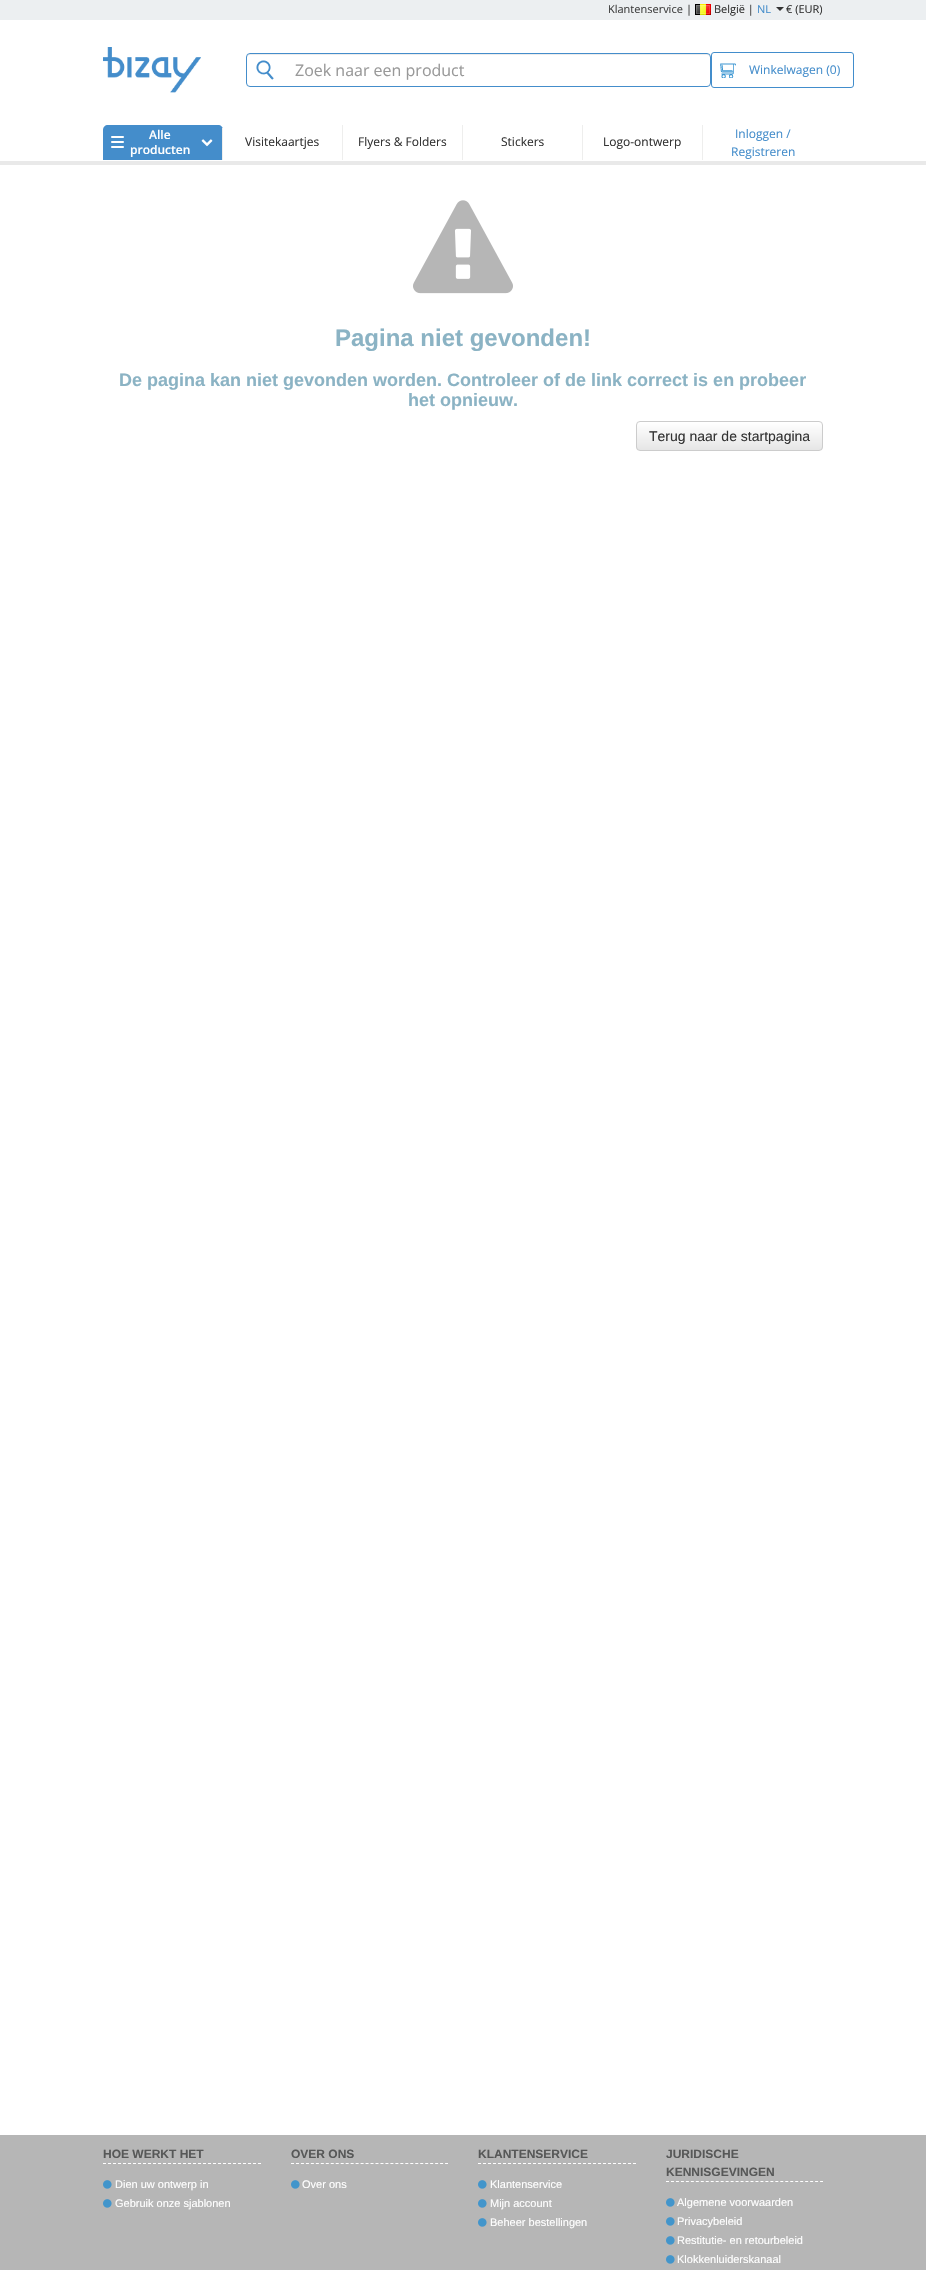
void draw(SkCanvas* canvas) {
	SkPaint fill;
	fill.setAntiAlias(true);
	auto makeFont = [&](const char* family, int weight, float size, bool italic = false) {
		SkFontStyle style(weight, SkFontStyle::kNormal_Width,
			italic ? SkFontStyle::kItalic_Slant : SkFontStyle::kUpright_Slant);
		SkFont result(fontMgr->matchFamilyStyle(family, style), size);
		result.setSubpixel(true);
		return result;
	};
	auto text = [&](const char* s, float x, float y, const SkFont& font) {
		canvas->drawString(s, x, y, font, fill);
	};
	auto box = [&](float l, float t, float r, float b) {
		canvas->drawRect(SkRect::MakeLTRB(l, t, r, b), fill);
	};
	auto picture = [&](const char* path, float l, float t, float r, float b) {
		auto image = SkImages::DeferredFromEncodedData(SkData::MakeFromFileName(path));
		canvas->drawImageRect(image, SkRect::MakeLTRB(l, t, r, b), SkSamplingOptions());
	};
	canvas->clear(0xFFFFFFFF);
	fill.setColor(0xFFECEFF1);
	box(0, 0, 926, 20);
	picture("image0.png", 695, 4, 711, 15);
	fill.setColor(0xFF333333);
	canvas->drawPath(SkPathBuilder().moveTo(776, 7).lineTo(784, 7).lineTo(780, 11).close().detach(), fill);
	picture("image1.png", 103, 47, 201, 93);
	fill.setColor(0xFFECECEC);
	canvas->drawPath(SkPathBuilder().moveTo(250, 55).lineTo(707, 55).cubicTo(709, 55, 710, 56, 710, 58).lineTo(710, 56).lineTo(708, 54).lineTo(250, 54).cubicTo(248, 54, 247, 56, 247, 58).cubicTo(247, 56, 248, 55, 250, 55).close().detach(), fill);
	fill.setStyle(SkPaint::kStroke_Style);
	fill.setStrokeWidth(1);
	fill.setColor(0xFF448DCB);
	canvas->drawRoundRect(SkRect::MakeLTRB(246.5f, 53.5f, 710.5f, 86.5f), 3.5f, 3.5f, fill);
	picture("image2.png", 256, 60, 274, 80);
	fill.setColor(0xFF428DCC);
	canvas->drawRoundRect(SkRect::MakeLTRB(711.5f, 52.5f, 853.5f, 87.5f), 2.5f, 2.5f, fill);
	picture("image3.png", 720, 63, 736, 78);
	fill.setStyle(SkPaint::kFill_Style);
	fill.setColor(0xFF448DCB);
	canvas->drawPath(SkPathBuilder().moveTo(108, 125).lineTo(218, 125).cubicTo(221, 125, 223, 127, 223, 130).lineTo(223, 160).lineTo(103, 160).lineTo(103, 130).cubicTo(103, 127, 105, 125, 108, 125).close().detach(), fill);
	fill.setColor(0xFFEEEEED);
	box(222, 128, 223, 160);
	picture("image4.png", 111, 136, 124, 148);
	picture("image5.png", 201, 139, 213, 147);
	box(342, 125, 343, 160);
	box(462, 125, 463, 160);
	box(582, 125, 583, 160);
	box(702, 125, 703, 160);
	fill.setColor(0xFFE9E9E9);
	box(0, 161, 926, 165);
	picture("image6.png", 413, 200, 513, 294);
	canvas->save();
	canvas->clipPath(SkPathBuilder().moveTo(640, 421).lineTo(819, 421).cubicTo(821, 421, 823, 423, 823, 425).lineTo(823, 447).cubicTo(823, 449, 821, 451, 819, 451).lineTo(640, 451).cubicTo(638, 451, 636, 449, 636, 447).lineTo(636, 425).cubicTo(636, 423, 638, 421, 640, 421).close().detach(), true);
	{
		const SkColor colors[] = {0xFFFFFFFF, 0xFFE6E6E6};
		const float stops[] = {0, 1};
		const SkPoint ends[] = {{730, 422}, {730, 450}};
		fill.setShader(SkGradientShader::MakeLinear(ends, colors, stops, 2, SkTileMode::kClamp));
		fill.setAlpha(255);
	}
	box(636, 422, 823, 450);
	canvas->restore();
	fill.setStyle(SkPaint::kStroke_Style);
	fill.setShader(nullptr);
	fill.setColor(0xFFCCCCCC);
	canvas->drawRoundRect(SkRect::MakeLTRB(636.5f, 421.5f, 822.5f, 450.5f), 3.5f, 3.5f, fill);
	fill.setStyle(SkPaint::kFill_Style);
	fill.setColor(0xFFB6B6B6);
	box(0, 2135, 926, 2270);
	fill.setStyle(SkPaint::kStroke_Style);
	fill.setColor(0xFFFFFFFF);
	fill.setPathEffect(SkDashPathEffect::Make({{3, 2}}, 0));
	canvas->drawPath(SkPathBuilder().moveTo(103, 2163.5f).lineTo(261, 2163.5f).detach(), fill);
	fill.setPathEffect(nullptr);
	picture("image7.png", 103, 2180, 112, 2189);
	picture("image7.png", 103, 2199, 112, 2208);
	fill.setPathEffect(SkDashPathEffect::Make({{3, 1.97f}}, 0));
	canvas->drawPath(SkPathBuilder().moveTo(291, 2163.5f).lineTo(448, 2163.5f).detach(), fill);
	fill.setPathEffect(nullptr);
	picture("image7.png", 291, 2180, 300, 2189);
	fill.setPathEffect(SkDashPathEffect::Make({{3, 2}}, 0));
	canvas->drawPath(SkPathBuilder().moveTo(478, 2163.5f).lineTo(636, 2163.5f).detach(), fill);
	fill.setPathEffect(nullptr);
	picture("image7.png", 478, 2180, 487, 2189);
	picture("image7.png", 478, 2199, 487, 2208);
	picture("image7.png", 478, 2218, 487, 2227);
	fill.setPathEffect(SkDashPathEffect::Make({{3, 1.97f}}, 0));
	canvas->drawPath(SkPathBuilder().moveTo(666, 2181.5f).lineTo(823, 2181.5f).detach(), fill);
	fill.setPathEffect(nullptr);
	picture("image7.png", 666, 2198, 675, 2207);
	picture("image7.png", 666, 2217, 675, 2226);
	picture("image7.png", 666, 2236, 675, 2245);
	picture("image7.png", 666, 2255, 675, 2264);
	auto font1 = makeFont("Open Sans", 400, 11);
	fill.setStyle(SkPaint::kFill_Style);
	fill.setColor(0xFF404040);
	text("Klantenservice", 608, 13, font1);
	fill.setColor(0xFF333333);
	text("|", 686, 13, font1);
	text("België |", 714, 13, font1);
	fill.setColor(0xFF448DCB);
	text("NL", 757, 13, font1);
	fill.setColor(0xFF333333);
	text("€ (EUR)", 786, 13, font1);
	auto font2 = makeFont("Open Sans", 400, 16);
	fill.setColor(0xFF999999);
	text("Zoek naar een product", 295, 76, font2);
	auto font3 = makeFont("Open Sans", 400, 12);
	fill.setColor(0xFF448DCB);
	text("Winkelwagen (0)", 749, 74, font3);
	auto font4 = makeFont("Open Sans", 600, 12);
	fill.setColor(0xFFFFFFFF);
	text("Alle", 149, 139, font4);
	text("producten", 130, 154, font4);
	fill.setColor(0xFF333333);
	text("Visitekaartjes", 245, 146, font3);
	text("Flyers & Folders", 358, 146, font3);
	text("Stickers", 501, 146, font3);
	text("Logo-ontwerp", 603, 146, font3);
	fill.setColor(0xFF448DCB);
	text("Inloggen /", 735, 138, font3);
	text("Registreren", 731, 156, font3);
	auto font5 = makeFont("Liberation Sans", 700, 24);
	fill.setColor(0xFF8BB3C4);
	text("Pagina niet gevonden!", 335, 346, font5);
	auto font6 = makeFont("Liberation Sans", 700, 18);
	text("De pagina kan niet gevonden worden. Controleer of de link correct is en probeer", 119, 386, font6);
	text("het opnieuw.", 408, 406, font6);
	auto font7 = makeFont("Liberation Sans", 400, 14);
	fill.setColor(0xFF333333);
	text("Terug naar de startpagina", 649, 441, font7);
	auto font8 = makeFont("Liberation Sans", 700, 12);
	fill.setColor(0xFF575858);
	text("HOE WERKT HET", 103, 2158, font8);
	auto font9 = makeFont("Liberation Sans", 400, 11);
	fill.setColor(0xFFFFFFFF);
	text("Dien uw ontwerp in", 115, 2188, font9);
	text("Gebruik onze sjablonen", 115, 2207, font9);
	fill.setColor(0xFF575858);
	text("OVER ONS", 291, 2158, font8);
	fill.setColor(0xFFFFFFFF);
	text("Over ons", 302, 2188, font9);
	fill.setColor(0xFF575858);
	text("KLANTENSERVICE", 478, 2158, font8);
	fill.setColor(0xFFFFFFFF);
	text("Klantenservice", 490, 2188, font9);
	text("Mijn account", 490, 2207, font9);
	text("Beheer bestellingen", 490, 2226, font9);
	fill.setColor(0xFF575858);
	text("JURIDISCHE", 666, 2158, font8);
	text("KENNISGEVINGEN", 666, 2176, font8);
	fill.setColor(0xFFFFFFFF);
	text("Algemene voorwaarden", 677, 2206, font9);
	text("Privacybeleid", 677, 2225, font9);
	text("Restitutie- en retourbeleid", 677, 2244, font9);
	text("Klokkenluiderskanaal", 677, 2263, font9);
}
